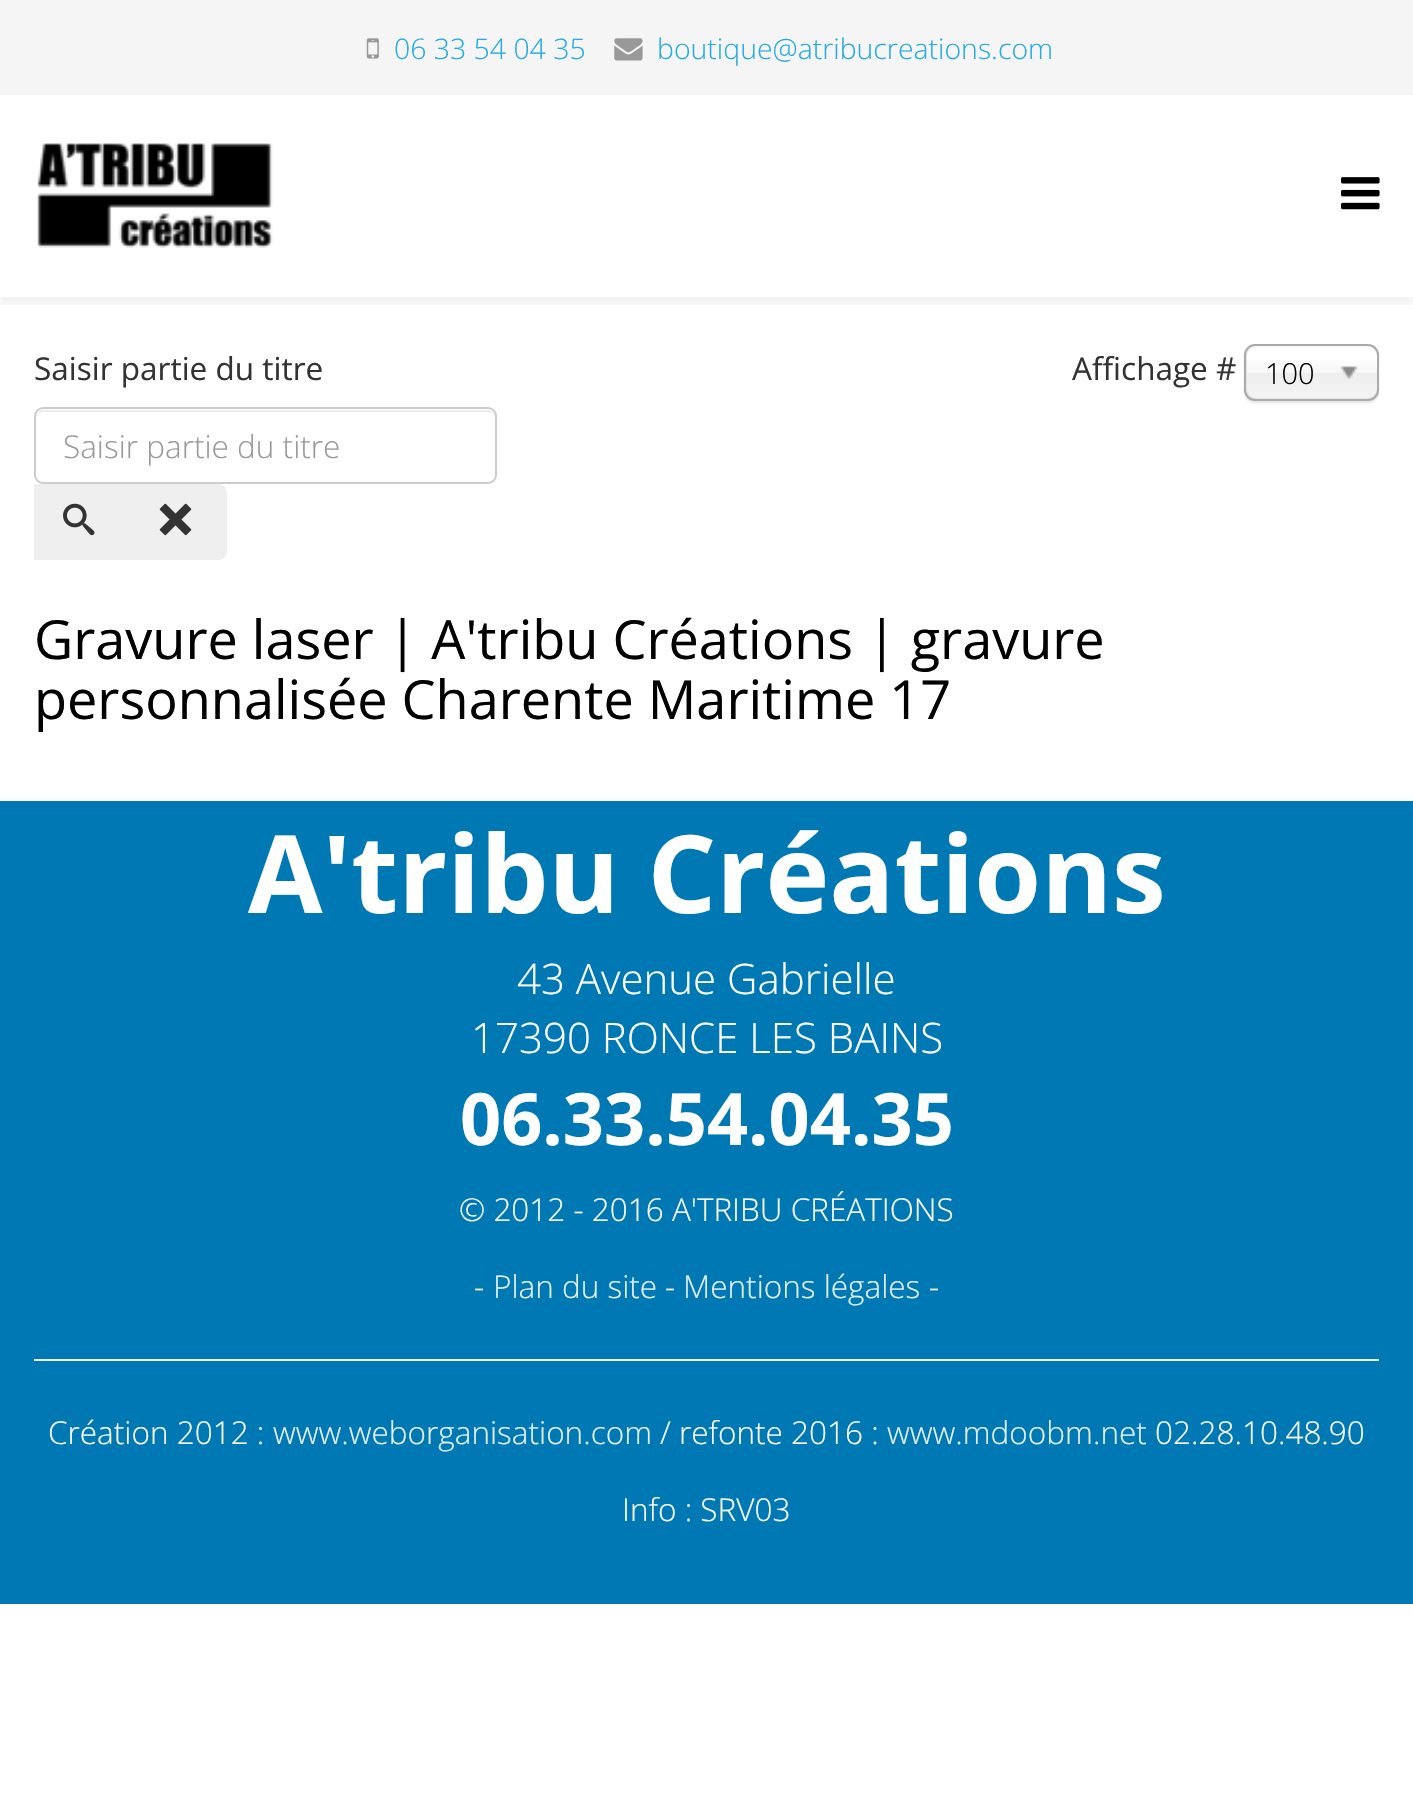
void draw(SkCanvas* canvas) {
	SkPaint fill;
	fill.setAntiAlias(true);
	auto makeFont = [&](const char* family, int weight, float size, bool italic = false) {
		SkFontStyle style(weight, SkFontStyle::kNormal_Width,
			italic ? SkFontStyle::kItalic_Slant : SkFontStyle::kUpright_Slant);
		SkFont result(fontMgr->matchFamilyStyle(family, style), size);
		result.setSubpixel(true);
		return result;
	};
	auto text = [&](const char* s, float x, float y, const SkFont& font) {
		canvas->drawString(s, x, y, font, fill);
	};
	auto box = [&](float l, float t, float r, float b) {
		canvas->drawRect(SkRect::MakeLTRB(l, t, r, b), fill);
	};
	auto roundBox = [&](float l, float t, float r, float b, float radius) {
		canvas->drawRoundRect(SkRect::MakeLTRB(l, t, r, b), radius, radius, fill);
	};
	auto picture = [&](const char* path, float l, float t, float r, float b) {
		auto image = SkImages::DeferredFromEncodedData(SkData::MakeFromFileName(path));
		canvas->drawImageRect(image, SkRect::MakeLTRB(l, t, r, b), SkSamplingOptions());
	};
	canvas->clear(0xFFFFFFFF);
	fill.setColor(0xFFF5F5F5);
	box(0, 0, 1413, 95);
	picture("image0.png", 366, 38, 379, 59);
	picture("image1.png", 614, 38, 643, 61);
	canvas->save();
	canvas->clipRect(SkRect::MakeLTRB(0, 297, 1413, 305));
	fill.setColor(0x0D000000);
	fill.setMaskFilter(SkMaskFilter::MakeBlur(kNormal_SkBlurStyle, 3.5f));
	canvas->drawRect(SkRect::MakeLTRB(0, 101, 1413, 304), fill);
	fill.setMaskFilter(nullptr);
	canvas->restore();
	picture("image2.png", 37, 143, 273, 248);
	picture("image3.png", 1341, 177, 1380, 210);
	fill.setColor(0xFFECECEC);
	canvas->drawPath(SkPathBuilder().moveTo(43, 412).lineTo(488, 412).cubicTo(492, 412, 495, 415, 495, 418).lineTo(495, 417).cubicTo(495, 413, 492, 410, 488, 410).lineTo(43, 410).cubicTo(39, 410, 36, 413, 36, 417).lineTo(36, 418).cubicTo(36, 415, 39, 412, 43, 412).close().detach(), fill);
	fill.setStyle(SkPaint::kStroke_Style);
	fill.setStrokeWidth(2);
	fill.setColor(0xFFCCCCCC);
	canvas->drawRoundRect(SkRect::MakeLTRB(35, 408, 496, 483), 8, 8, fill);
	fill.setStyle(SkPaint::kFill_Style);
	fill.setColor(0xFFEFEFEF);
	box(34, 484, 131, 560);
	picture("image4.png", 63, 503, 95, 536);
	canvas->drawPath(SkPathBuilder().moveTo(131, 484).lineTo(218, 484).cubicTo(223, 484, 227, 488, 227, 493).lineTo(227, 551).cubicTo(227, 556, 223, 560, 218, 560).lineTo(131, 560).close().detach(), fill);
	picture("image5.png", 159, 503, 192, 536);
	fill.setColor(0x1A000000);
	fill.setMaskFilter(SkMaskFilter::MakeBlur(kNormal_SkBlurStyle, 1));
	canvas->drawRoundRect(SkRect::MakeLTRB(1244, 347, 1379, 403), 11, 11, fill);
	fill.setMaskFilter(nullptr);
	{
		const SkColor colors[] = {0xFFFFFFFF, 0xFFF6F6F6, 0xFFEEEEEE, 0xFFF4F4F4};
		const float stops[] = {0.2f, 0.5f, 0.52f, 1};
		const SkPoint ends[] = {{1312, 347}, {1312, 398}};
		fill.setShader(SkGradientShader::MakeLinear(ends, colors, stops, 4, SkTileMode::kClamp));
		fill.setAlpha(255);
	}
	roundBox(1247, 347, 1377, 398, 9);
	fill.setStyle(SkPaint::kStroke_Style);
	fill.setShader(nullptr);
	fill.setColor(0xFFAAAAAA);
	canvas->drawRoundRect(SkRect::MakeLTRB(1245, 345, 1378, 400), 10, 10, fill);
	picture("image6.png", 1340, 366, 1358, 379);
	fill.setStyle(SkPaint::kFill_Style);
	fill.setColor(0xFF0078B3);
	box(0, 801, 1413, 1604);
	fill.setColor(0xFFEEEEEE);
	box(34, 1359, 1379, 1361);
	auto font1 = makeFont("Open Sans", 300, 28.4f);
	fill.setColor(0xFF26AAE1);
	text("06 33 54 04 35", 394, 59, font1);
	text("boutique@atribucreations.com", 657, 59, font1);
	auto font2 = makeFont("Open Sans", 400, 31.5f);
	fill.setColor(0xFF333333);
	text("Saisir partie du titre", 34, 380, font2);
	auto font3 = makeFont("Open Sans", 300, 31.5f);
	fill.setColor(0xFF999999);
	text("Saisir partie du titre", 63, 458, font3);
	fill.setColor(0xFF333333);
	text("Affichage #", 1072, 380, font2);
	auto font4 = makeFont("Open Sans", 300, 29);
	fill.setColor(0xFF000000);
	text("100", 1265, 384, font4);
	auto font5 = makeFont("Open Sans", 400, 54);
	text("Gravure laser | A'tribu Créations | gravure", 34, 659, font5);
	text("personnalisée Charente Maritime 17", 34, 719, font5);
	auto font6 = makeFont("Open Sans", 700, 108);
	fill.setColor(0xFFFFFFFF);
	text("A'tribu Créations", 248, 913, font6);
	auto font7 = makeFont("Open Sans", 300, 42);
	text("43 Avenue Gabrielle", 517, 994, font7);
	text("17390 RONCE LES BAINS", 471, 1053, font7);
	auto font8 = makeFont("Open Sans", 700, 72);
	text("06.33.54.04.35", 460, 1145, font8);
	text("© 2012 - 2016 A'TRIBU CRÉATIONS", 459, 1221, font3);
	text("-", 474, 1298, font3);
	fill.setColor(0xFFE6F2F7);
	text("Plan du site", 493, 1298, font3);
	fill.setColor(0xFFFFFFFF);
	text("-", 665, 1298, font3);
	fill.setColor(0xFFE6F2F7);
	text("Mentions légales", 683, 1298, font3);
	fill.setColor(0xFFFFFFFF);
	text("-", 929, 1298, font3);
	text("Création 2012 :", 48, 1444, font3);
	fill.setColor(0xFFE6F2F7);
	text("www.weborganisation.com", 273, 1444, font3);
	fill.setColor(0xFFFFFFFF);
	text("/ refonte 2016 :", 660, 1444, font3);
	fill.setColor(0xFFE6F2F7);
	text("www.mdoobm.net", 887, 1444, font3);
	fill.setColor(0xFFFFFFFF);
	text("02.28.10.48.90", 1155, 1444, font3);
	text("Info : SRV03", 622, 1521, font3);
}
